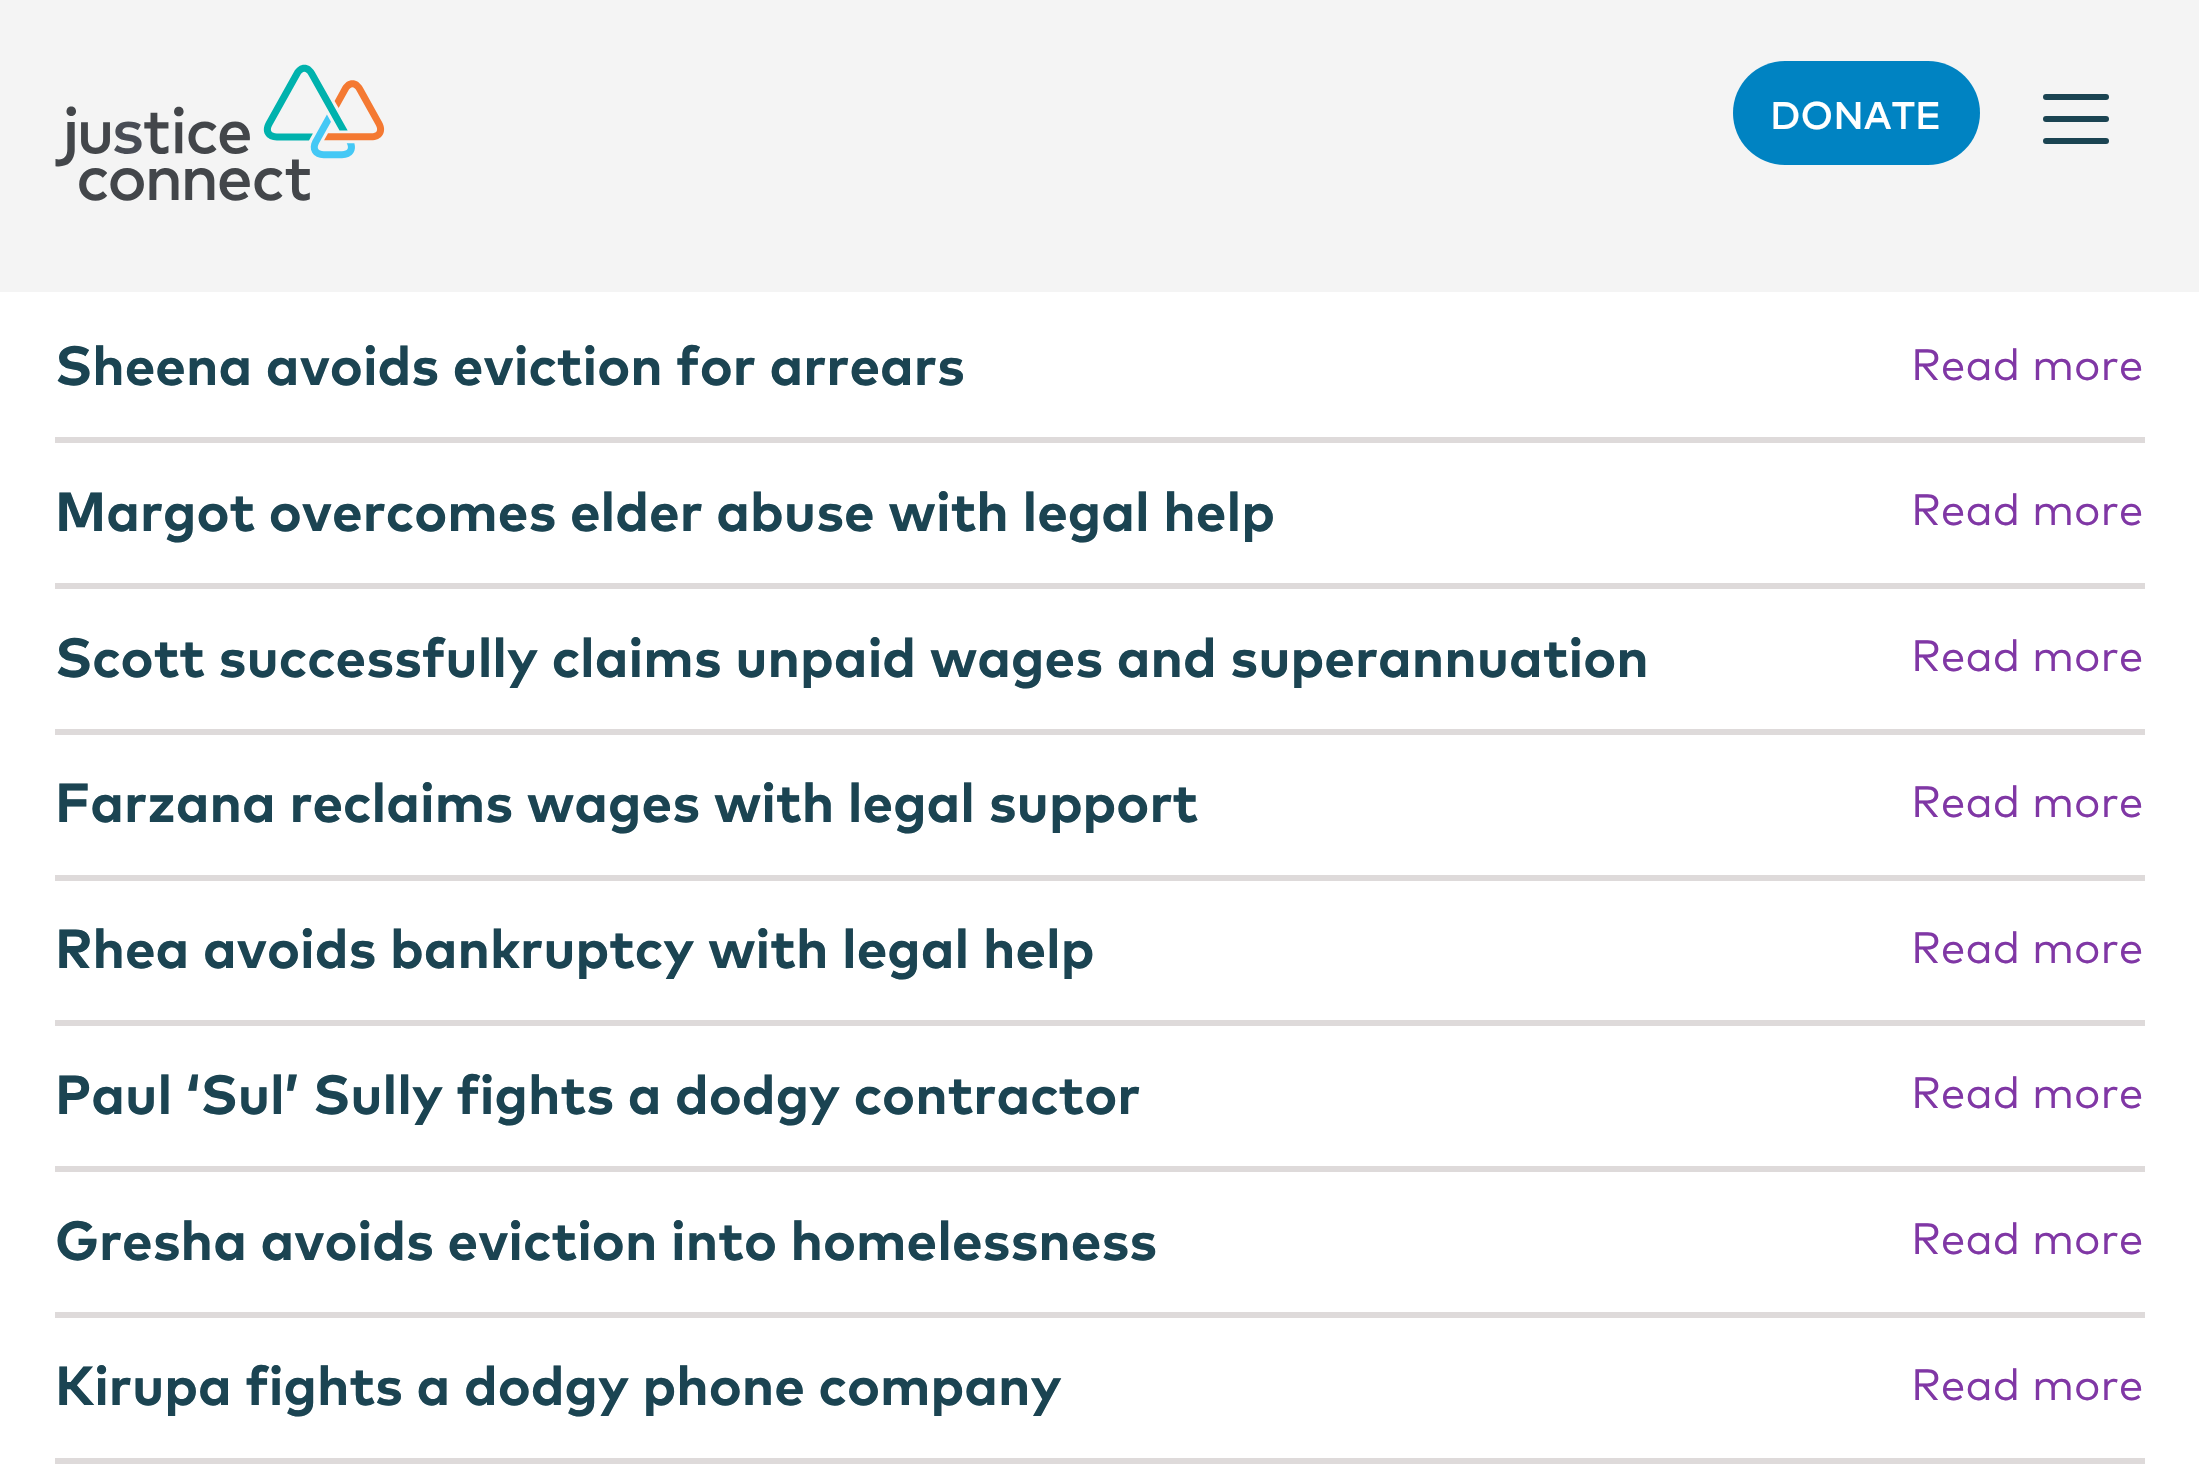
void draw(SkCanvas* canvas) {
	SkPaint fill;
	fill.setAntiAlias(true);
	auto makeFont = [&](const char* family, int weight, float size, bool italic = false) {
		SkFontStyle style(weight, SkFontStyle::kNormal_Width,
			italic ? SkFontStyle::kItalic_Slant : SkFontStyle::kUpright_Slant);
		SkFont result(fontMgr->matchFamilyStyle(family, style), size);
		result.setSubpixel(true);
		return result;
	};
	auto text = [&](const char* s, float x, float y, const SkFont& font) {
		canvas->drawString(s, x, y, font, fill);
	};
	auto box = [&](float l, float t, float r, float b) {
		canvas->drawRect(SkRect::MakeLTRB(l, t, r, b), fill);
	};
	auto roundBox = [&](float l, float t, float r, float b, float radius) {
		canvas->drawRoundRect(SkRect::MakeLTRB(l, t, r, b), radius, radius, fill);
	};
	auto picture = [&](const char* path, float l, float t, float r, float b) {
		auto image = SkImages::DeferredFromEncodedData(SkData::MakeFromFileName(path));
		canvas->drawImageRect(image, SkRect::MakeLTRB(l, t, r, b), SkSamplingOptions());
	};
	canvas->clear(0xFFFFFFFF);
	fill.setColor(0xFFF4F4F4);
	box(0, 0, 2199, 292);
	picture("image0.png", 55, 64, 385, 201);
	fill.setColor(0xFF0083C2);
	roundBox(1733, 61, 1980, 165, 52);
	fill.setColor(0xFF1B4452);
	roundBox(2043, 116, 2109, 122, 3);
	roundBox(2043, 94, 2109, 100, 3);
	roundBox(2043, 138, 2109, 144, 3);
	fill.setColor(0xFFDEDADA);
	box(55, 437, 2145, 443);
	box(55, 583, 2145, 589);
	box(55, 729, 2145, 735);
	box(55, 875, 2145, 881);
	box(55, 1020, 2145, 1026);
	box(55, 1166, 2145, 1172);
	box(55, 1312, 2145, 1318);
	box(55, 1458, 2145, 1464);
	auto font1 = makeFont("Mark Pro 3", 400, 38.5f);
	fill.setColor(0xFFFFFFFF);
	text("DONATE", 1770, 129, font1);
	auto font2 = makeFont("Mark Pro", 400, 55);
	fill.setColor(0xFF1B4452);
	text("Sheena avoids eviction for arrears", 55, 385, font2);
	auto font3 = makeFont("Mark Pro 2", 400, 44);
	fill.setColor(0xFF8037A5);
	text("Read more", 1911, 380, font3);
	fill.setColor(0xFF1B4452);
	text("Margot overcomes elder abuse with legal help", 55, 531, font2);
	fill.setColor(0xFF8037A5);
	text("Read more", 1911, 525, font3);
	fill.setColor(0xFF1B4452);
	text("Scott successfully claims unpaid wages and superannuation", 55, 677, font2);
	fill.setColor(0xFF8037A5);
	text("Read more", 1911, 671, font3);
	fill.setColor(0xFF1B4452);
	text("Farzana reclaims wages with legal support", 55, 822, font2);
	fill.setColor(0xFF8037A5);
	text("Read more", 1911, 817, font3);
	fill.setColor(0xFF1B4452);
	text("Rhea avoids bankruptcy with legal help", 55, 968, font2);
	fill.setColor(0xFF8037A5);
	text("Read more", 1911, 963, font3);
	fill.setColor(0xFF1B4452);
	text("Paul ‘Sul’ Sully fights a dodgy contractor", 55, 1114, font2);
	fill.setColor(0xFF8037A5);
	text("Read more", 1911, 1108, font3);
	fill.setColor(0xFF1B4452);
	text("Gresha avoids eviction into homelessness", 55, 1260, font2);
	fill.setColor(0xFF8037A5);
	text("Read more", 1911, 1254, font3);
	fill.setColor(0xFF1B4452);
	text("Kirupa fights a dodgy phone company", 55, 1405, font2);
	fill.setColor(0xFF8037A5);
	text("Read more", 1911, 1400, font3);
}
